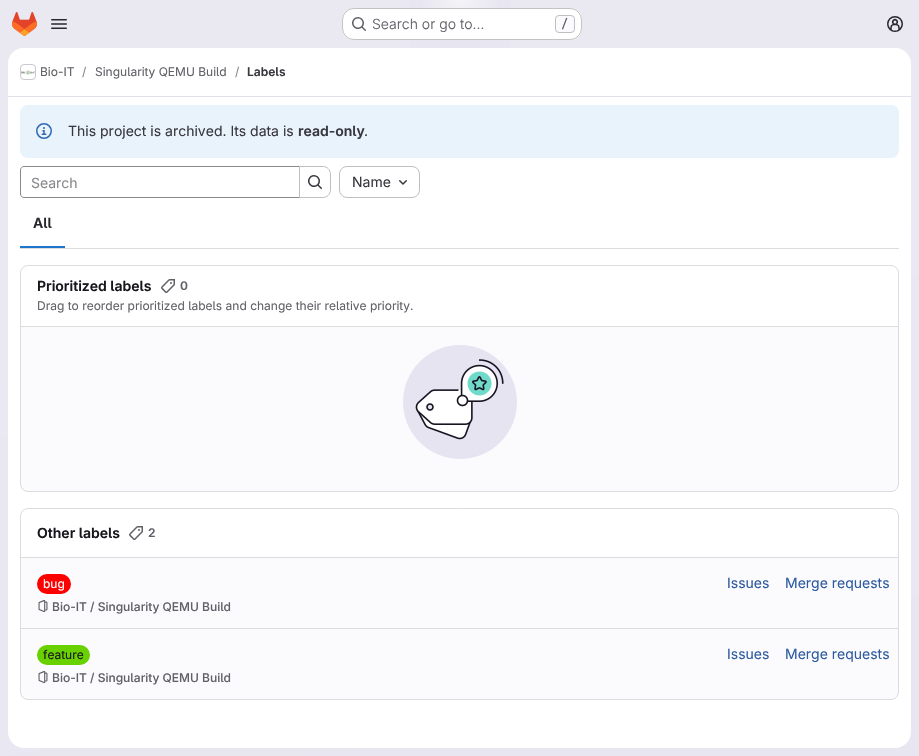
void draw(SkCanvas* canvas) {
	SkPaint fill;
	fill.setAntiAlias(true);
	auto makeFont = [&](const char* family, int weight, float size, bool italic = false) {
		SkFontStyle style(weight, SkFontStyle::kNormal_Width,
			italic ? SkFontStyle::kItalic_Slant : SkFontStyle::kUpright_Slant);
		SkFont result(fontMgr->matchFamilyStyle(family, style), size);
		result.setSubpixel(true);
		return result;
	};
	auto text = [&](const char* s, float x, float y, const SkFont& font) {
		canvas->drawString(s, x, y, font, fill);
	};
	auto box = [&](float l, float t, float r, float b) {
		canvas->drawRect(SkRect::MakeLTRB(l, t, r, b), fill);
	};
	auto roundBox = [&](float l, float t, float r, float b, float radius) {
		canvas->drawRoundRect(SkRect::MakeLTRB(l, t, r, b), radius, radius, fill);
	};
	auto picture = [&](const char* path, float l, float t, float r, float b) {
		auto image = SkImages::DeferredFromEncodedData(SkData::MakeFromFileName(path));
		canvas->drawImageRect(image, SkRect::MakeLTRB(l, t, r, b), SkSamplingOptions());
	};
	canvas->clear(0xFFFFFFFF);
	{
		const SkColor colors[] = {0xFFE8E6F0, 0xFFEAE9F2};
		const float stops[] = {0, 0.7f};
		const SkPoint ends[] = {{538, 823}, {381, -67}};
		fill.setShader(SkGradientShader::MakeLinear(ends, colors, stops, 2, SkTileMode::kClamp));
		fill.setAlpha(255);
	}
	box(0, 0, 919, 756);
	{
		const SkColor colors[] = {0xFFE4E2ED, 0x00E4E2ED};
		const float stops[] = {0, 0.15f};
		SkMatrix m = SkMatrix::Translate(460, 0).preScale(460, 756);
		fill.setShader(SkGradientShader::MakeRadial({0, 0}, 1, colors, stops, 2, SkTileMode::kClamp, 0, &m));
		fill.setAlpha(255);
	}
	box(410, 0, 510, 48);
	{
		const SkColor colors[] = {0xFFE4E2EC, 0x00E4E2EC};
		const float stops[] = {0, 0.11f};
		SkMatrix m = SkMatrix::Translate(460, 0).preScale(460, 756);
		fill.setShader(SkGradientShader::MakeRadial({0, 0}, 1, colors, stops, 2, SkTileMode::kClamp, 0, &m));
		fill.setAlpha(255);
	}
	box(441, 19, 479, 30);
	{
		const SkColor colors[] = {0x99FFFFFF, 0x00FFFFFF};
		const float stops[] = {0, 0.05f};
		fill.setShader(SkGradientShader::MakeRadial({460, 0}, 885, colors, stops, 2, SkTileMode::kClamp));
		fill.setAlpha(255);
	}
	box(423, 0, 497, 37);
	picture("image0.png", 12, 12, 37, 36);
	picture("image1.png", 51, 19, 67, 29);
	fill.setShader(nullptr);
	fill.setColor(0xFFFFFFFF);
	roundBox(342, 8, 582, 40, 12);
	fill.setStyle(SkPaint::kStroke_Style);
	fill.setStrokeWidth(1);
	fill.setColor(0x3D050506);
	canvas->drawRoundRect(SkRect::MakeLTRB(342.5f, 8.5f, 581.5f, 39.5f), 11.5f, 11.5f, fill);
	picture("image2.png", 352, 17, 366, 31);
	fill.setStyle(SkPaint::kFill_Style);
	fill.setColor(0xFFFBFAFD);
	canvas->drawRoundRect(SkRect::MakeLTRB(555.5f, 15.5f, 574.5f, 32.5f), 3.5f, 3.5f, fill);
	fill.setStyle(SkPaint::kStroke_Style);
	fill.setColor(0xFFBFBFC3);
	canvas->drawRoundRect(SkRect::MakeLTRB(555.5f, 15.5f, 574.5f, 32.5f), 3.5f, 3.5f, fill);
	picture("image3.png", 887, 16, 903, 32);
	fill.setStyle(SkPaint::kFill_Style);
	fill.setColor(0xFFFFFFFF);
	roundBox(8, 48, 911, 748, 16);
	canvas->drawPath(SkPathBuilder().moveTo(24, 48).lineTo(895, 48).cubicTo(904, 48, 911, 55, 911, 64).lineTo(911, 97).lineTo(8, 97).lineTo(8, 64).cubicTo(8, 55, 15, 48, 24, 48).close().detach(), fill);
	fill.setColor(0xFFE1DFEC);
	box(8, 96, 911, 97);
	fill.setStyle(SkPaint::kStroke_Style);
	fill.setColor(0xFFDCDCDE);
	canvas->drawRoundRect(SkRect::MakeLTRB(20.5f, 64.5f, 35.5f, 79.5f), 3.5f, 3.5f, fill);
	picture("image4.png", 21, 70, 35, 75);
	fill.setColor(0x14050506);
	canvas->drawRoundRect(SkRect::MakeLTRB(20.5f, 64.5f, 35.5f, 79.5f), 3.5f, 3.5f, fill);
	fill.setStyle(SkPaint::kFill_Style);
	fill.setColor(0xFFE9F3FC);
	roundBox(20, 105, 899, 158, 8);
	picture("image5.png", 36, 123, 52, 139);
	fill.setColor(0xFFDCDCDE);
	box(20, 248, 899, 249);
	fill.setStyle(SkPaint::kStroke_Style);
	fill.setColor(0xFF89888D);
	canvas->drawPath(SkPathBuilder().moveTo(24, 166.5f).lineTo(299.5f, 166.5f).lineTo(299.5f, 197.5f).lineTo(24, 197.5f).cubicTo(22, 197.5f, 20.5f, 196, 20.5f, 194).lineTo(20.5f, 170).cubicTo(20.5f, 168, 22, 166.5f, 24, 166.5f).close().detach(), fill);
	fill.setStyle(SkPaint::kFill_Style);
	fill.setColor(0xFFFFFFFF);
	canvas->drawPath(SkPathBuilder().moveTo(299.5f, 166.5f).lineTo(323, 166.5f).cubicTo(327, 166.5f, 330.5f, 170, 330.5f, 174).lineTo(330.5f, 190).cubicTo(330.5f, 194, 327, 197.5f, 323, 197.5f).lineTo(299.5f, 197.5f).close().detach(), fill);
	fill.setStyle(SkPaint::kStroke_Style);
	fill.setColor(0xFFBFBFC3);
	canvas->drawPath(SkPathBuilder().moveTo(299.5f, 166.5f).lineTo(323, 166.5f).cubicTo(327, 166.5f, 330.5f, 170, 330.5f, 174).lineTo(330.5f, 190).cubicTo(330.5f, 194, 327, 197.5f, 323, 197.5f).lineTo(299.5f, 197.5f).close().detach(), fill);
	picture("image6.png", 308, 175, 322, 189);
	canvas->drawRoundRect(SkRect::MakeLTRB(339.5f, 166.5f, 419.5f, 197.5f), 7.5f, 7.5f, fill);
	picture("image7.png", 399, 180, 407, 185);
	fill.setStyle(SkPaint::kFill_Style);
	fill.setColor(0xFF1F75CB);
	box(20, 246, 65, 248);
	fill.setColor(0xFFFBFAFD);
	canvas->drawRoundRect(SkRect::MakeLTRB(20.5f, 265.5f, 898.5f, 491.5f), 7.5f, 7.5f, fill);
	fill.setStyle(SkPaint::kStroke_Style);
	fill.setColor(0xFFDCDCDE);
	canvas->drawRoundRect(SkRect::MakeLTRB(20.5f, 265.5f, 898.5f, 491.5f), 7.5f, 7.5f, fill);
	fill.setStyle(SkPaint::kFill_Style);
	fill.setColor(0xFFFFFFFF);
	canvas->drawPath(SkPathBuilder().moveTo(29, 266).lineTo(890, 266).cubicTo(894.5f, 266, 898, 269.5f, 898, 274).lineTo(898, 327).lineTo(21, 327).lineTo(21, 274).cubicTo(21, 269.5f, 24.5f, 266, 29, 266).close().detach(), fill);
	fill.setColor(0xFFDCDCDE);
	box(21, 326, 898, 327);
	picture("image8.png", 161, 279, 175, 293);
	picture("image9.png", 403, 345, 517, 459);
	fill.setColor(0xFFFBFAFD);
	canvas->drawRoundRect(SkRect::MakeLTRB(20.5f, 508.5f, 898.5f, 699.5f), 7.5f, 7.5f, fill);
	fill.setStyle(SkPaint::kStroke_Style);
	fill.setColor(0xFFDCDCDE);
	canvas->drawRoundRect(SkRect::MakeLTRB(20.5f, 508.5f, 898.5f, 699.5f), 7.5f, 7.5f, fill);
	fill.setStyle(SkPaint::kFill_Style);
	fill.setColor(0xFFFFFFFF);
	canvas->drawPath(SkPathBuilder().moveTo(29, 509).lineTo(890, 509).cubicTo(894.5f, 509, 898, 512.5f, 898, 517).lineTo(898, 558).lineTo(21, 558).lineTo(21, 517).cubicTo(21, 512.5f, 24.5f, 509, 29, 509).close().detach(), fill);
	fill.setColor(0xFFDCDCDE);
	box(21, 557, 898, 558);
	picture("image10.png", 129, 526, 143, 540);
	box(21, 628, 898, 629);
	fill.setColor(0xFFFF0000);
	roundBox(37, 574, 71, 594, 10);
	picture("image11.png", 38, 600, 48, 612);
	fill.setColor(0xFF69D100);
	roundBox(37, 645, 90, 665, 10);
	picture("image11.png", 38, 671, 48, 683);
	auto font1 = makeFont("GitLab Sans", 300, 14);
	fill.setColor(0xFF626168);
	text("Search or go to…", 372, 29, font1);
	auto font2 = makeFont("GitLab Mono", 500, 12);
	text("/", 561, 28, font2);
	auto font3 = makeFont("GitLab Sans", 400, 12);
	text("Bio-IT", 40, 76, font3);
	fill.setColor(0xFF89888D);
	text("/", 82, 76, font3);
	fill.setColor(0xFF626168);
	text("Singularity QEMU Build", 95, 76, font3);
	fill.setColor(0xFF89888D);
	text("/", 235, 76, font3);
	auto font4 = makeFont("GitLab Sans", 600, 12);
	fill.setColor(0xFF3A383F);
	text("Labels", 247, 76, font4);
	auto font5 = makeFont("GitLab Sans", 400, 14);
	text("This project is archived. Its data is", 68, 136, font5);
	auto font6 = makeFont("GitLab Sans", 600, 14);
	text("read-only", 298, 136, font6);
	text(".", 364, 136, font5);
	fill.setColor(0xFF89888D);
	text("Search", 31, 188, font5);
	fill.setColor(0xFF3A383F);
	text("Name", 352, 187, font5);
	fill.setColor(0xFF28272D);
	text("All", 33, 228, font6);
	fill.setColor(0xFF18171D);
	text("Prioritized labels", 37, 291, font6);
	fill.setColor(0xFF626168);
	text("0", 180, 290, font4);
	text("Drag to reorder prioritized labels and change their relative priority.", 37, 310, font3);
	fill.setColor(0xFF18171D);
	text("Other labels", 37, 538, font6);
	fill.setColor(0xFF626168);
	text("2", 148, 537, font4);
	fill.setColor(0xFFFFFFFF);
	text("bug", 43, 588, font3);
	auto font7 = makeFont("GitLab Sans", 500, 12);
	fill.setColor(0xFF626168);
	text("Bio-IT / Singularity QEMU Build", 52, 611, font7);
	fill.setColor(0xFF2F5CA0);
	text("Issues", 727, 588, font5);
	text("Merge requests", 785, 588, font5);
	fill.setColor(0xFF18171D);
	text("feature", 43, 659, font3);
	fill.setColor(0xFF626168);
	text("Bio-IT / Singularity QEMU Build", 52, 682, font7);
	fill.setColor(0xFF2F5CA0);
	text("Issues", 727, 659, font5);
	text("Merge requests", 785, 659, font5);
}
